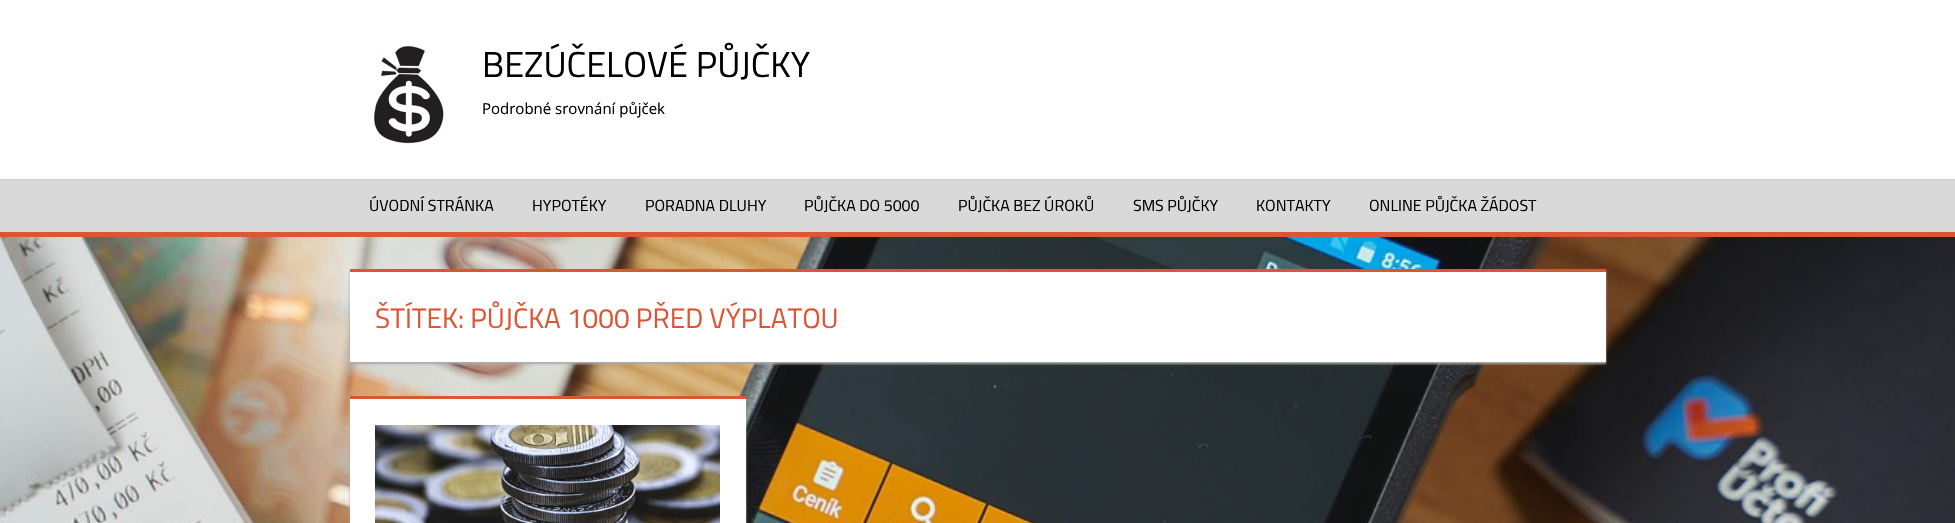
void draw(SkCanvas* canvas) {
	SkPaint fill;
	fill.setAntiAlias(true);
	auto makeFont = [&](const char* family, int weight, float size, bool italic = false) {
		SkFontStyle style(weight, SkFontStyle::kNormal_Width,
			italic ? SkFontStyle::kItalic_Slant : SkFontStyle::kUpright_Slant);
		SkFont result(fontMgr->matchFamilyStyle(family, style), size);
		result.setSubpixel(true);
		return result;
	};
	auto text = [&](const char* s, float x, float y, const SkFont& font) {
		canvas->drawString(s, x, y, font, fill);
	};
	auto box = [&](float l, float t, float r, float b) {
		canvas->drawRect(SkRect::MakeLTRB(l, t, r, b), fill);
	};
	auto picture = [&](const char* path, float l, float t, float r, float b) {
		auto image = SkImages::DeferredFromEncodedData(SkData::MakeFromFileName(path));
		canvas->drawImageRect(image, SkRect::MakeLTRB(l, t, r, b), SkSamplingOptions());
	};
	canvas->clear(0xFFFFFFFF);
	picture("image0.png", 0, 237, 1955, 523);
	picture("image1.png", 374, 46, 444, 144);
	fill.setColor(0xFFD9D9D9);
	box(0, 180, 1955, 232);
	fill.setColor(0xFFCECECE);
	box(0, 179, 1955, 180);
	fill.setColor(0xFFDD5533);
	box(0, 232, 1955, 237);
	fill.setColor(0xFFAAAAAA);
	fill.setMaskFilter(SkMaskFilter::MakeBlur(kNormal_SkBlurStyle, 1));
	canvas->drawRect(SkRect::MakeLTRB(350, 271, 1606, 364), fill);
	fill.setMaskFilter(nullptr);
	fill.setColor(0xFFFFFFFF);
	box(350, 272, 1606, 362);
	fill.setColor(0xFFDD5533);
	box(350, 269, 1606, 272);
	fill.setColor(0xFFAAAAAA);
	fill.setMaskFilter(SkMaskFilter::MakeBlur(kNormal_SkBlurStyle, 1));
	canvas->drawRect(SkRect::MakeLTRB(350, 398, 746, 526), fill);
	fill.setMaskFilter(nullptr);
	fill.setColor(0xFFFFFFFF);
	box(350, 399, 746, 523);
	fill.setColor(0xFFDD5533);
	box(350, 396, 746, 399);
	picture("image2.png", 375, 425, 720, 523);
	auto font1 = makeFont("Titillium Web", 400, 36);
	fill.setColor(0xFF000000);
	text("BEZÚČELOVÉ PŮJČKY", 482, 77, font1);
	auto font2 = makeFont("Open Sans", 400, 15);
	text("Podrobné srovnání půjček", 482, 114, font2);
	auto font3 = makeFont("Titillium Web", 400, 16);
	text("ÚVODNÍ STRÁNKA", 369, 211, font3);
	text("HYPOTÉKY", 532, 211, font3);
	text("PORADNA DLUHY", 645, 211, font3);
	text("PŮJČKA DO 5000", 804, 211, font3);
	text("PŮJČKA BEZ ÚROKŮ", 958, 211, font3);
	text("SMS PŮJČKY", 1133, 211, font3);
	text("KONTAKTY", 1256, 211, font3);
	text("ONLINE PŮJČKA ŽÁDOST", 1369, 211, font3);
	auto font4 = makeFont("Titillium Web", 400, 28);
	fill.setColor(0xFFDD5533);
	text("ŠTÍTEK: PŮJČKA 1000 PŘED VÝPLATOU", 375, 328, font4);
}
